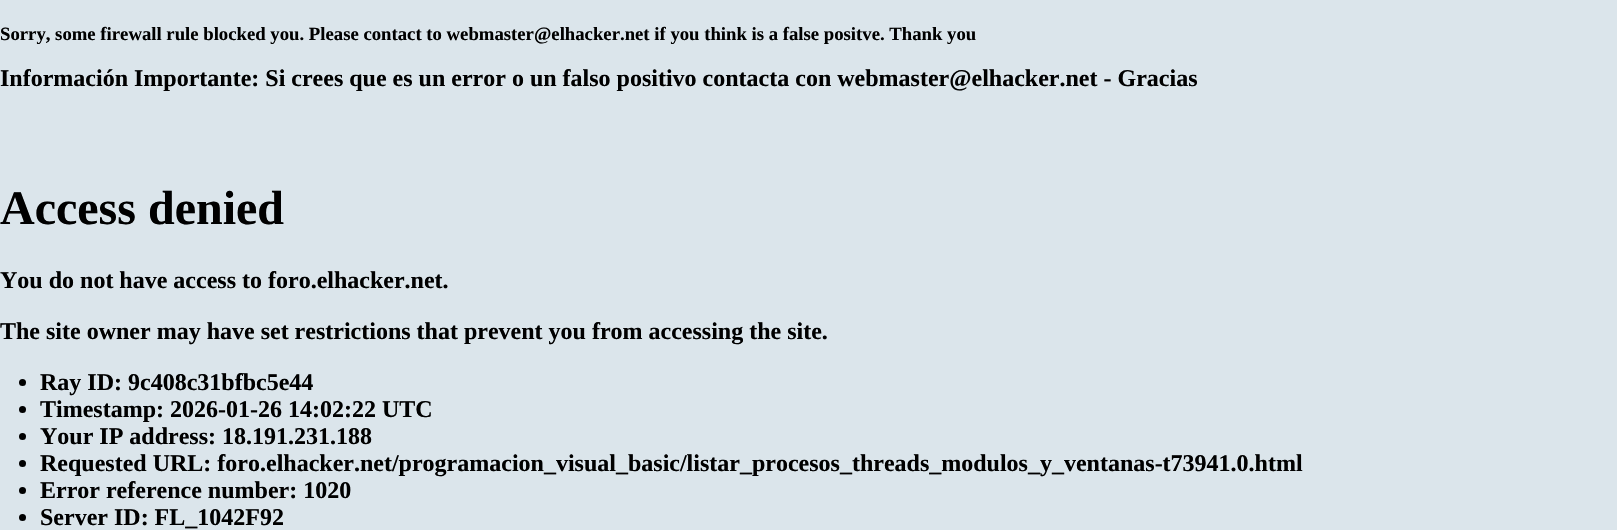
void draw(SkCanvas* canvas) {
	SkPaint fill;
	fill.setAntiAlias(true);
	auto makeFont = [&](const char* family, int weight, float size, bool italic = false) {
		SkFontStyle style(weight, SkFontStyle::kNormal_Width,
			italic ? SkFontStyle::kItalic_Slant : SkFontStyle::kUpright_Slant);
		SkFont result(fontMgr->matchFamilyStyle(family, style), size);
		result.setSubpixel(true);
		return result;
	};
	auto text = [&](const char* s, float x, float y, const SkFont& font) {
		canvas->drawString(s, x, y, font, fill);
	};
	canvas->clear(0xFFDBE5EB);
	fill.setColor(0xFF000000);
	canvas->drawCircle(22.5f, 382.5f, 3.5f, fill);
	canvas->drawCircle(22.5f, 409.5f, 3.5f, fill);
	canvas->drawCircle(22.5f, 436.5f, 3.5f, fill);
	canvas->drawCircle(22.5f, 463.5f, 3.5f, fill);
	canvas->drawCircle(22.5f, 490.5f, 3.5f, fill);
	canvas->drawCircle(22.5f, 517.5f, 3.5f, fill);
	auto font1 = makeFont("Liberation Serif", 700, 18.72f);
	text("Sorry, some firewall rule blocked you. Please contact to webmaster@elhacker.net if you think is a false positve. Thank you", 0, 40, font1);
	auto font2 = makeFont("Liberation Serif", 700, 24);
	text("Información Importante: Si crees que es un error o un falso positivo contacta con webmaster@elhacker.net - Gracias", 0, 86, font2);
	auto font3 = makeFont("Liberation Serif", 700, 48);
	text("Access denied", 0, 224, font3);
	text("You do not have access to foro.elhacker.net.", 0, 288, font2);
	text("The site owner may have set restrictions that prevent you from accessing the site.", 0, 339, font2);
	text("Ray ID: 9c408c31bfbc5e44", 40, 390, font2);
	text("Timestamp: 2026-01-26 14:02:22 UTC", 40, 417, font2);
	text("Your IP address: 18.191.231.188", 40, 444, font2);
	text("Requested URL: foro.elhacker.net/programacion_visual_basic/listar_procesos_threads_modulos_y_ventanas-t73941.0.html", 40, 471, font2);
	text("Error reference number: 1020", 40, 498, font2);
	text("Server ID: FL_1042F92", 40, 525, font2);
}
